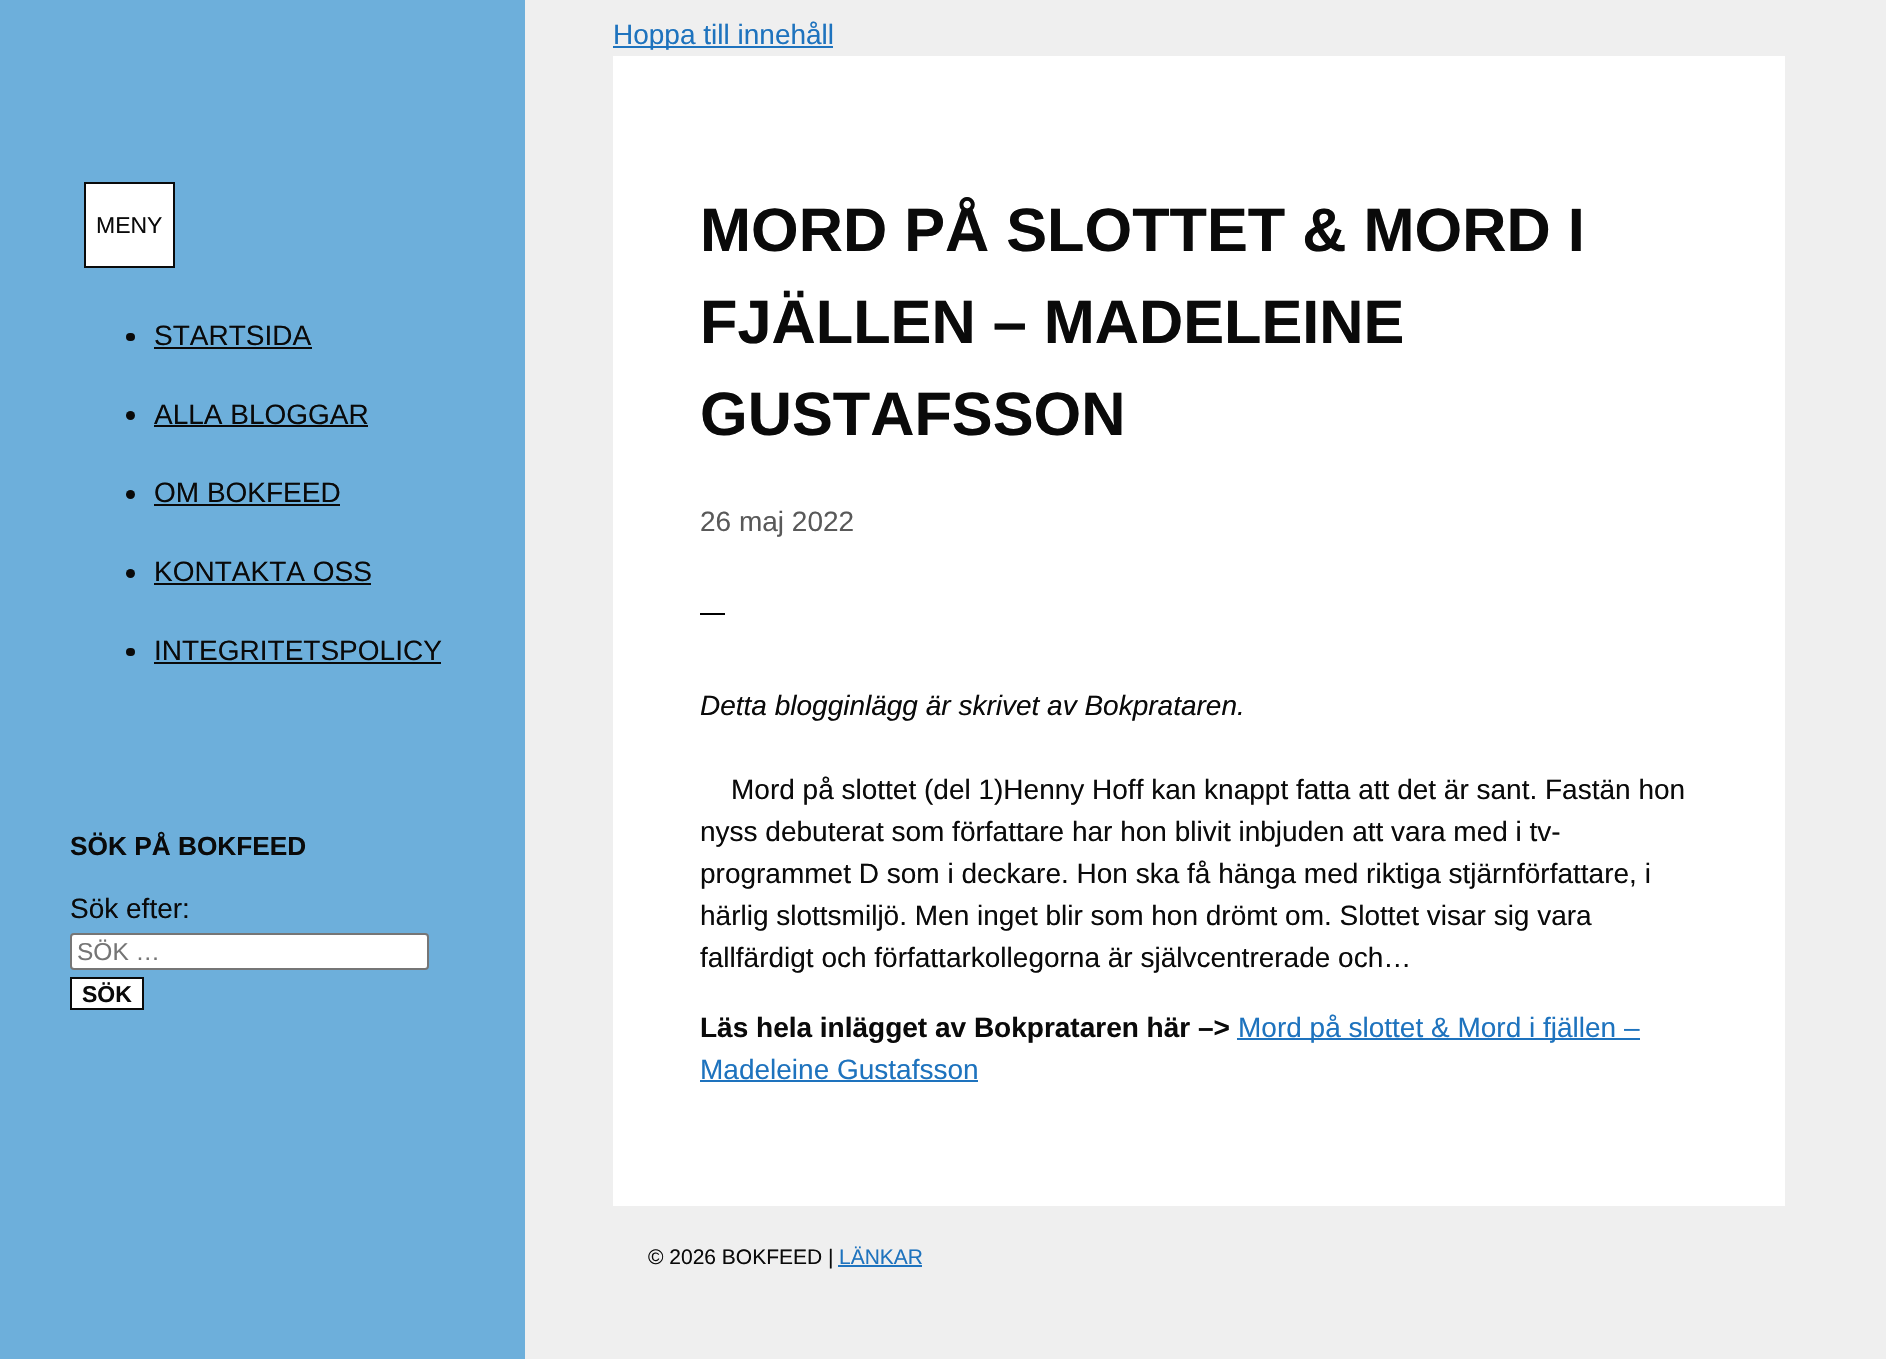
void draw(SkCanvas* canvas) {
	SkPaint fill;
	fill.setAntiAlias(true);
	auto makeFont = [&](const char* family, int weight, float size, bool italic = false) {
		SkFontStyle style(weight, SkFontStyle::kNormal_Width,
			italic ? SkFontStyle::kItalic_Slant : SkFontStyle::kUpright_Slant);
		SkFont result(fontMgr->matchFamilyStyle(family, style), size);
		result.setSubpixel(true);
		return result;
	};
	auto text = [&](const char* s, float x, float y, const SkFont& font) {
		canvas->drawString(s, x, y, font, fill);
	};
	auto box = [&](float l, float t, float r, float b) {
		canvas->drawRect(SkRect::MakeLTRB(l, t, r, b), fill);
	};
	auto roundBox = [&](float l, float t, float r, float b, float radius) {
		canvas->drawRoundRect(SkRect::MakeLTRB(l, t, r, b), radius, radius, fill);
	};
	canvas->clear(0xFFEFEFEF);
	fill.setColor(0xFF1E73BE);
	box(613, 46, 833, 48);
	fill.setColor(0xFF6DAFDB);
	box(0, 0, 525, 1359);
	fill.setColor(0xFFFFFFFF);
	canvas->drawRect(SkRect::MakeLTRB(85, 183, 174, 267), fill);
	fill.setStyle(SkPaint::kStroke_Style);
	fill.setStrokeWidth(2);
	fill.setColor(0xFF0A0A0A);
	canvas->drawRect(SkRect::MakeLTRB(85, 183, 174, 267), fill);
	fill.setStyle(SkPaint::kFill_Style);
	roundBox(126, 333, 135, 341, 4);
	box(154, 347, 312, 349);
	canvas->drawCircle(130.5f, 415.5f, 4.5f, fill);
	box(154, 425, 368, 427);
	canvas->drawCircle(130.5f, 494.5f, 4.5f, fill);
	box(154, 504, 340, 506);
	canvas->drawCircle(130.5f, 573.5f, 4.5f, fill);
	box(154, 583, 371, 585);
	roundBox(126, 648, 135, 656, 4);
	box(154, 662, 441, 664);
	fill.setColor(0xFFFFFFFF);
	canvas->drawRoundRect(SkRect::MakeLTRB(71, 934, 428, 969), 3, 3, fill);
	fill.setStyle(SkPaint::kStroke_Style);
	fill.setColor(0xFF767676);
	canvas->drawRoundRect(SkRect::MakeLTRB(71, 934, 428, 969), 3, 3, fill);
	fill.setStyle(SkPaint::kFill_Style);
	fill.setColor(0xFFFFFFFF);
	canvas->drawRect(SkRect::MakeLTRB(71, 978, 143, 1009), fill);
	fill.setStyle(SkPaint::kStroke_Style);
	fill.setColor(0xFF0A0A0A);
	canvas->drawRect(SkRect::MakeLTRB(71, 978, 143, 1009), fill);
	fill.setStyle(SkPaint::kFill_Style);
	fill.setColor(0xFFFFFFFF);
	box(613, 56, 1785, 1206);
	fill.setColor(0xFF000000);
	box(700, 613, 725, 615);
	fill.setColor(0xFF1E73BE);
	box(1237, 1038, 1640, 1040);
	box(700, 1080, 978, 1082);
	box(838, 1265, 922, 1267);
	auto font1 = makeFont("Arimo", 400, 28);
	text("Hoppa till innehåll", 613, 44, font1);
	auto font2 = makeFont("Arimo", 400, 23);
	fill.setColor(0xFF0A0A0A);
	text("MENY", 96, 233, font2);
	text("STARTSIDA", 154, 345, font1);
	text("ALLA BLOGGAR", 154, 424, font1);
	text("OM BOKFEED", 154, 502, font1);
	text("KONTAKTA OSS", 154, 581, font1);
	text("INTEGRITETSPOLICY", 154, 660, font1);
	auto font3 = makeFont("Arimo", 700, 26.25f);
	text("SÖK PÅ BOKFEED", 70, 855, font3);
	text("Sök efter:", 70, 918, font1);
	auto font4 = makeFont("Arimo", 400, 24.5f);
	fill.setColor(0xFF757575);
	text("SÖK …", 77, 960, font4);
	auto font5 = makeFont("Arimo", 700, 23);
	fill.setColor(0xFF0A0A0A);
	text("SÖK", 82, 1002, font5);
	auto font6 = makeFont("Arimo", 700, 61.25f);
	text("MORD PÅ SLOTTET & MORD I", 700, 251, font6);
	text("FJÄLLEN – MADELEINE", 700, 343, font6);
	text("GUSTAFSSON", 700, 435, font6);
	fill.setColor(0xFF595959);
	text("26 maj 2022", 700, 531, font1);
	auto font7 = makeFont("Arimo", 400, 28, true);
	fill.setColor(0xFF0A0A0A);
	text("Detta blogginlägg är skrivet av Bokprataren.", 700, 715, font7);
	text("Mord på slottet (del 1)Henny Hoff kan knappt fatta att det är sant. Fastän hon", 731, 799, font1);
	text("nyss debuterat som författare har hon blivit inbjuden att vara med i tv-", 700, 841, font1);
	text("programmet D som i deckare. Hon ska få hänga med riktiga stjärnförfattare, i", 700, 883, font1);
	text("härlig slottsmiljö. Men inget blir som hon drömt om. Slottet visar sig vara", 700, 925, font1);
	text("fallfärdigt och författarkollegorna är självcentrerade och…", 700, 967, font1);
	auto font8 = makeFont("Arimo", 700, 28);
	text("Läs hela inlägget av Bokprataren här –>", 700, 1037, font8);
	fill.setColor(0xFF1E73BE);
	text("Mord på slottet & Mord i fjällen –", 1238, 1037, font1);
	text("Madeleine Gustafsson", 700, 1079, font1);
	auto font9 = makeFont("Arimo", 400, 21);
	fill.setColor(0xFF0A0A0A);
	text("© 2026 BOKFEED |", 648, 1264, font9);
	fill.setColor(0xFF1E73BE);
	text("LÄNKAR", 839, 1264, font9);
}
